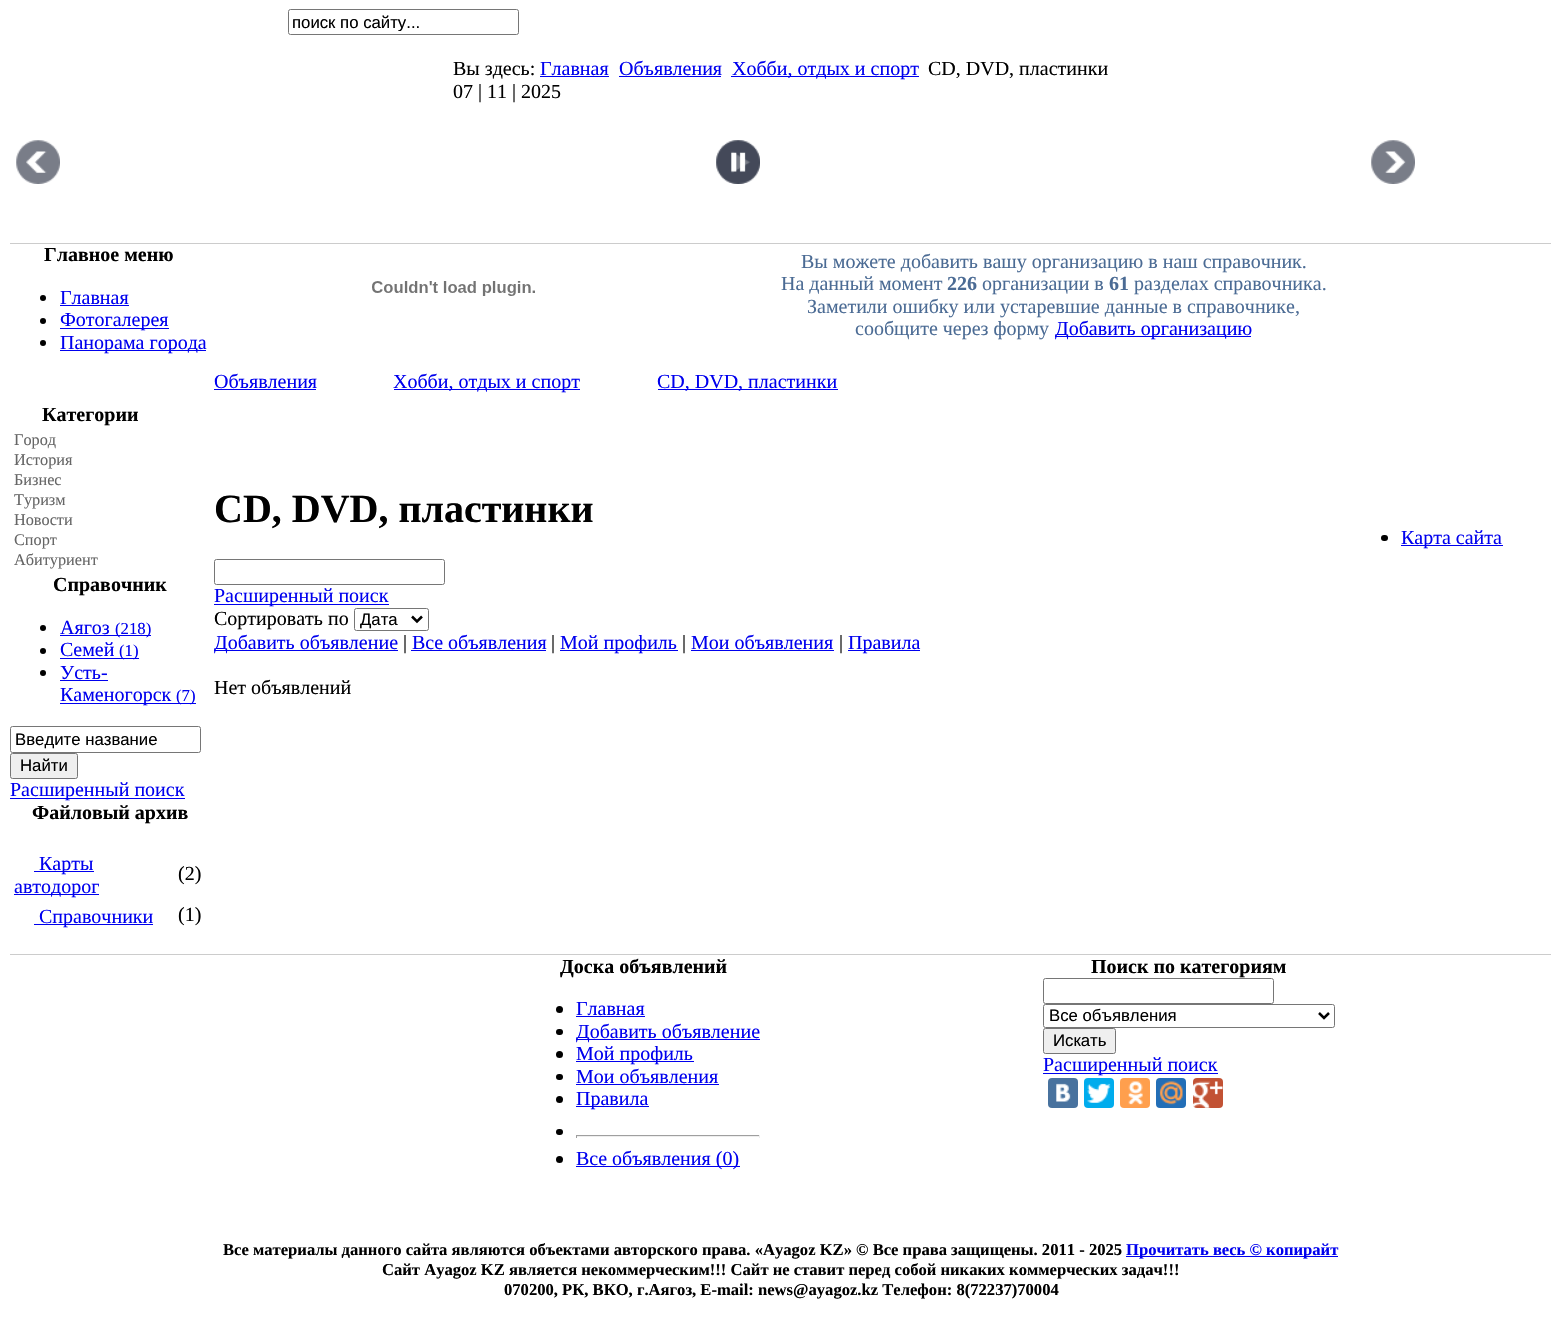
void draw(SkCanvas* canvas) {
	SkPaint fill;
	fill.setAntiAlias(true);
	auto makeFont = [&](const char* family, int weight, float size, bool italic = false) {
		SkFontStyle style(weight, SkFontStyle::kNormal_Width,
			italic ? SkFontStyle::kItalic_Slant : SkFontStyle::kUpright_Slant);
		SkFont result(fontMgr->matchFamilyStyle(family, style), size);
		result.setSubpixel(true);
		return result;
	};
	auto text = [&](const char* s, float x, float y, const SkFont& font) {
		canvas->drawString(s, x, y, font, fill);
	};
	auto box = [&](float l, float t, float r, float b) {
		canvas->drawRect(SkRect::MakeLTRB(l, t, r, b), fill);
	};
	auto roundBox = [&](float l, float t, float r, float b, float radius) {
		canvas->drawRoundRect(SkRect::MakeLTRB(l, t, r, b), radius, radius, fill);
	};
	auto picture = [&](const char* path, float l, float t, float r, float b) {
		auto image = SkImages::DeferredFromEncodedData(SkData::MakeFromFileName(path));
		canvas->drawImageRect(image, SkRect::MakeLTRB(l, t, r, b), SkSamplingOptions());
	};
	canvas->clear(0xFFFFFFFF);
	fill.setStyle(SkPaint::kStroke_Style);
	fill.setStrokeWidth(1);
	fill.setColor(0xFF767676);
	canvas->drawRoundRect(SkRect::MakeLTRB(288.5f, 9.5f, 518.5f, 34.5f), 2, 2, fill);
	fill.setStyle(SkPaint::kFill_Style);
	fill.setColor(0xFF0000EE);
	box(540, 76, 609, 77);
	box(619, 76, 721, 77);
	box(731, 76, 919, 77);
	picture("image0.png", 16, 140, 60, 184);
	picture("image1.png", 716, 140, 760, 184);
	picture("image2.png", 716, 140, 760, 184);
	picture("image3.png", 1371, 140, 1415, 184);
	fill.setColor(0xFFCCCCCC);
	box(10, 243, 1551, 244);
	fill.setColor(0xFF000000);
	canvas->drawCircle(43, 298, 3, fill);
	fill.setColor(0xFF0000EE);
	box(60, 305, 129, 306);
	fill.setColor(0xFF000000);
	canvas->drawCircle(43, 321, 3, fill);
	fill.setColor(0xFF0000EE);
	box(60, 328, 169, 329);
	fill.setColor(0xFF000000);
	canvas->drawCircle(43, 343, 3, fill);
	fill.setColor(0xFF0000EE);
	box(60, 350, 206, 351);
	fill.setColor(0xFF000000);
	canvas->drawCircle(43, 628, 3, fill);
	fill.setColor(0xFF0000EE);
	box(60, 635, 151, 636);
	fill.setColor(0xFF000000);
	canvas->drawCircle(43, 651, 3, fill);
	fill.setColor(0xFF0000EE);
	box(60, 658, 139, 659);
	fill.setColor(0xFF000000);
	canvas->drawCircle(43, 673, 3, fill);
	fill.setColor(0xFF0000EE);
	box(60, 680, 108, 681);
	box(60, 703, 196, 704);
	fill.setStyle(SkPaint::kStroke_Style);
	fill.setColor(0xFF767676);
	canvas->drawRoundRect(SkRect::MakeLTRB(10.5f, 726.5f, 200.5f, 752.5f), 2, 2, fill);
	fill.setStyle(SkPaint::kFill_Style);
	fill.setColor(0xFFEFEFEF);
	canvas->drawRoundRect(SkRect::MakeLTRB(10.5f, 753.5f, 77.5f, 778.5f), 2, 2, fill);
	fill.setStyle(SkPaint::kStroke_Style);
	fill.setColor(0xFF767676);
	canvas->drawRoundRect(SkRect::MakeLTRB(10.5f, 753.5f, 77.5f, 778.5f), 2, 2, fill);
	fill.setStyle(SkPaint::kFill_Style);
	fill.setColor(0xFF0000EE);
	box(10, 798, 185, 799);
	box(34, 871, 94, 872);
	box(14, 894, 99, 895);
	box(34, 924, 153, 925);
	picture("image4.png", 372, 281, 535, 296);
	box(1055, 336, 1251, 337);
	box(214, 389, 316, 390);
	box(394, 389, 580, 390);
	box(658, 389, 838, 390);
	fill.setStyle(SkPaint::kStroke_Style);
	fill.setColor(0xFF767676);
	canvas->drawRoundRect(SkRect::MakeLTRB(214.5f, 559.5f, 444.5f, 584.5f), 2, 2, fill);
	fill.setStyle(SkPaint::kFill_Style);
	fill.setColor(0xFF0000EE);
	box(214, 604, 389, 605);
	fill.setStyle(SkPaint::kStroke_Style);
	fill.setColor(0xFF767676);
	canvas->drawRoundRect(SkRect::MakeLTRB(354.5f, 608.5f, 428.5f, 630.5f), 2, 2, fill);
	fill.setStrokeWidth(2.5f);
	fill.setColor(0xFF000000);
	canvas->drawPath(SkPathBuilder().moveTo(412, 616.5f).lineTo(417, 621.5f).lineTo(422, 616.5f).detach(), fill);
	fill.setStyle(SkPaint::kFill_Style);
	fill.setColor(0xFF0000EE);
	box(214, 650, 398, 651);
	box(411, 650, 546, 651);
	box(560, 650, 678, 651);
	box(691, 650, 834, 651);
	box(848, 650, 920, 651);
	fill.setColor(0xFF000000);
	roundBox(1381, 535, 1388, 541, 3);
	fill.setColor(0xFF0000EE);
	box(1401, 545, 1503, 546);
	fill.setColor(0xFFCCCCCC);
	box(10, 954, 1551, 955);
	fill.setColor(0xFF000000);
	canvas->drawCircle(559.5f, 1009.5f, 3.5f, fill);
	fill.setColor(0xFF0000EE);
	box(576, 1016, 645, 1017);
	fill.setColor(0xFF000000);
	roundBox(556, 1029, 563, 1035, 3);
	fill.setColor(0xFF0000EE);
	box(576, 1039, 760, 1040);
	fill.setColor(0xFF000000);
	canvas->drawCircle(559.5f, 1054.5f, 3.5f, fill);
	fill.setColor(0xFF0000EE);
	box(576, 1061, 694, 1062);
	fill.setColor(0xFF000000);
	roundBox(556, 1074, 563, 1080, 3);
	fill.setColor(0xFF0000EE);
	box(576, 1084, 719, 1085);
	fill.setColor(0xFF000000);
	canvas->drawCircle(559.5f, 1099.5f, 3.5f, fill);
	fill.setColor(0xFF0000EE);
	box(576, 1106, 649, 1107);
	fill.setColor(0xFF000000);
	roundBox(556, 1129, 563, 1135, 3);
	fill.setColor(0xFF9F9F9F);
	box(576, 1135, 760, 1136);
	fill.setColor(0xFFEEEEEE);
	box(759, 1135, 760, 1138);
	box(576, 1136, 760, 1137);
	fill.setColor(0xFF9F9F9F);
	box(576, 1135, 577, 1138);
	fill.setColor(0xFF000000);
	canvas->drawCircle(559.5f, 1159.5f, 3.5f, fill);
	fill.setColor(0xFF0000EE);
	box(576, 1166, 740, 1167);
	fill.setStyle(SkPaint::kStroke_Style);
	fill.setStrokeWidth(1);
	fill.setColor(0xFF767676);
	canvas->drawRoundRect(SkRect::MakeLTRB(1043.5f, 978.5f, 1273.5f, 1003.5f), 2, 2, fill);
	canvas->drawRoundRect(SkRect::MakeLTRB(1043.5f, 1004.5f, 1334.5f, 1027.5f), 2, 2, fill);
	fill.setStrokeWidth(2.5f);
	fill.setColor(0xFF000000);
	canvas->drawPath(SkPathBuilder().moveTo(1319, 1013).lineTo(1324, 1018).lineTo(1329, 1013).detach(), fill);
	fill.setStyle(SkPaint::kFill_Style);
	fill.setColor(0xFFEFEFEF);
	canvas->drawRoundRect(SkRect::MakeLTRB(1043.5f, 1028.5f, 1115.5f, 1053.5f), 2, 2, fill);
	fill.setStyle(SkPaint::kStroke_Style);
	fill.setStrokeWidth(1);
	fill.setColor(0xFF767676);
	canvas->drawRoundRect(SkRect::MakeLTRB(1043.5f, 1028.5f, 1115.5f, 1053.5f), 2, 2, fill);
	fill.setStyle(SkPaint::kFill_Style);
	fill.setColor(0xFF0000EE);
	box(1043, 1073, 1218, 1074);
	fill.setColor(0xFF48729E);
	roundBox(1048, 1078, 1078, 1108, 4);
	picture("image5.png", 1056, 1083, 1071, 1102);
	fill.setColor(0xFF00ACED);
	roundBox(1084, 1078, 1114, 1108, 4);
	picture("image6.png", 1087, 1083, 1111, 1103);
	fill.setColor(0xFFFF9F4D);
	roundBox(1120, 1078, 1150, 1108, 4);
	picture("image7.png", 1128, 1081, 1143, 1105);
	fill.setColor(0xFF226EB7);
	roundBox(1156, 1078, 1186, 1108, 4);
	picture("image8.png", 1159, 1081, 1183, 1105);
	fill.setColor(0xFFC25234);
	roundBox(1193, 1078, 1223, 1108, 4);
	picture("image9.png", 1193, 1081, 1223, 1108);
	fill.setColor(0xFF0000EE);
	box(1126, 1256, 1338, 1257);
	canvas->save();
	canvas->clipRect(SkRect::MakeLTRB(293, 13, 514, 31));
	auto font1 = makeFont("Liberation Sans", 400, 16.75f);
	fill.setColor(0xFF000000);
	text("поиск по сайту...", 292, 28, font1);
	canvas->restore();
	auto font2 = makeFont("Liberation Serif", 400, 20);
	text("Вы здесь:", 453, 75, font2);
	fill.setColor(0xFF0000EE);
	text("Главная", 540, 75, font2);
	text("Объявления", 619, 75, font2);
	text("Хобби, отдых и спорт", 732, 75, font2);
	fill.setColor(0xFF000000);
	text("CD, DVD, пластинки", 928, 75, font2);
	text("07 | 11 | 2025", 453, 98, font2);
	auto font3 = makeFont("Liberation Serif", 700, 20);
	text("Главное меню", 44, 261, font3);
	fill.setColor(0xFF0000EE);
	text("Главная", 60, 304, font2);
	text("Фотогалерея", 60, 326, font2);
	text("Панорама города", 60, 349, font2);
	fill.setColor(0xFF000000);
	text("Категории", 42, 421, font3);
	auto font4 = makeFont("Liberation Serif", 400, 16.25f);
	fill.setColor(0xFF666666);
	text("Город", 14, 445, font4);
	text("История", 14, 465, font4);
	text("Бизнес", 14, 485, font4);
	text("Туризм", 14, 505, font4);
	text("Новости", 14, 525, font4);
	text("Спорт", 14, 545, font4);
	text("Абитуриент", 14, 565, font4);
	fill.setColor(0xFF000000);
	text("Справочник", 53, 591, font3);
	fill.setColor(0xFF0000EE);
	text("Аягоз", 60, 634, font2);
	auto font5 = makeFont("Liberation Serif", 400, 16.75f);
	text("(218)", 115, 634, font5);
	text("Семей", 60, 656, font2);
	text("(1)", 119, 656, font5);
	text("Усть-", 60, 679, font2);
	text("Каменогорск", 60, 701, font2);
	text("(7)", 176, 701, font5);
	fill.setColor(0xFF000000);
	text("Введите название", 15, 745, font1);
	text("Найти", 20, 771, font1);
	fill.setColor(0xFF0000EE);
	text("Расширенный поиск", 10, 796, font2);
	fill.setColor(0xFF000000);
	text("Файловый архив", 32, 819, font3);
	fill.setColor(0xFF0000EE);
	text("Карты", 39, 870, font2);
	text("автодорог", 14, 893, font2);
	fill.setColor(0xFF000000);
	text("(2)", 178, 880, font2);
	fill.setColor(0xFF0000EE);
	text("Справочники", 39, 923, font2);
	fill.setColor(0xFF000000);
	text("(1)", 178, 921, font2);
	fill.setColor(0xFF4B6B94);
	text("Вы можете добавить вашу организацию в наш справочник.", 801, 268, font2);
	text("На данный момент", 781, 290, font2);
	text("226", 947, 290, font3);
	text("организации в", 982, 290, font2);
	text("61", 1109, 290, font3);
	text("разделах справочника.", 1134, 290, font2);
	text("Заметили ошибку или устаревшие данные в справочнике,", 807, 313, font2);
	text("сообщите через форму", 855, 335, font2);
	fill.setColor(0xFF0000EE);
	text("Добавить организацию", 1055, 335, font2);
	text("Объявления", 214, 388, font2);
	text("Хобби, отдых и спорт", 393, 388, font2);
	text("CD, DVD, пластинки", 657, 388, font2);
	auto font6 = makeFont("Liberation Serif", 700, 40);
	fill.setColor(0xFF000000);
	text("CD, DVD, пластинки", 214, 522, font6);
	fill.setColor(0xFF0000EE);
	text("Расширенный поиск", 214, 602, font2);
	fill.setColor(0xFF000000);
	text("Сортировать по", 214, 625, font2);
	canvas->save();
	canvas->clipRect(SkRect::MakeLTRB(360, 609, 408, 630));
	text("Дата", 360, 625, font1);
	canvas->restore();
	fill.setColor(0xFF0000EE);
	text("Добавить объявление", 214, 649, font2);
	fill.setColor(0xFF000000);
	text("|", 403, 649, font2);
	fill.setColor(0xFF0000EE);
	text("Все объявления", 412, 649, font2);
	fill.setColor(0xFF000000);
	text("|", 551, 649, font2);
	fill.setColor(0xFF0000EE);
	text("Мой профиль", 560, 649, font2);
	fill.setColor(0xFF000000);
	text("|", 682, 649, font2);
	fill.setColor(0xFF0000EE);
	text("Мои объявления", 691, 649, font2);
	fill.setColor(0xFF000000);
	text("|", 839, 649, font2);
	fill.setColor(0xFF0000EE);
	text("Правила", 848, 649, font2);
	fill.setColor(0xFF000000);
	text("Нет объявлений", 214, 694, font2);
	fill.setColor(0xFF0000EE);
	text("Карта сайта", 1401, 544, font2);
	fill.setColor(0xFF000000);
	text("Доска объявлений", 560, 973, font3);
	fill.setColor(0xFF0000EE);
	text("Главная", 576, 1015, font2);
	text("Добавить объявление", 576, 1038, font2);
	text("Мой профиль", 576, 1060, font2);
	text("Мои объявления", 576, 1083, font2);
	text("Правила", 576, 1105, font2);
	text("Все объявления (0)", 576, 1165, font2);
	fill.setColor(0xFF000000);
	text("Поиск по категориям", 1091, 973, font3);
	text("Все объявления", 1049, 1021, font1);
	text("Искать", 1053, 1046, font1);
	fill.setColor(0xFF0000EE);
	text("Расширенный поиск", 1043, 1071, font2);
	auto font7 = makeFont("Liberation Serif", 700, 16.6f);
	fill.setColor(0xFF000000);
	text("Все материалы данного сайта являются объектами авторского права. «Ayagoz KZ» © Все права защищены. 2011 - 2025", 223, 1255, font7);
	fill.setColor(0xFF0000EE);
	text("Прочитать весь © копирайт", 1126, 1255, font7);
	fill.setColor(0xFF000000);
	text("Сайт Ayagoz KZ является некоммерческим!!! Сайт не ставит перед собой никаких коммерческих задач!!!", 382, 1275, font7);
	text("070200, РК, ВКО, г.Аягоз, E-mail: news@ayagoz.kz Телефон: 8(72237)70004", 504, 1295, font7);
}
